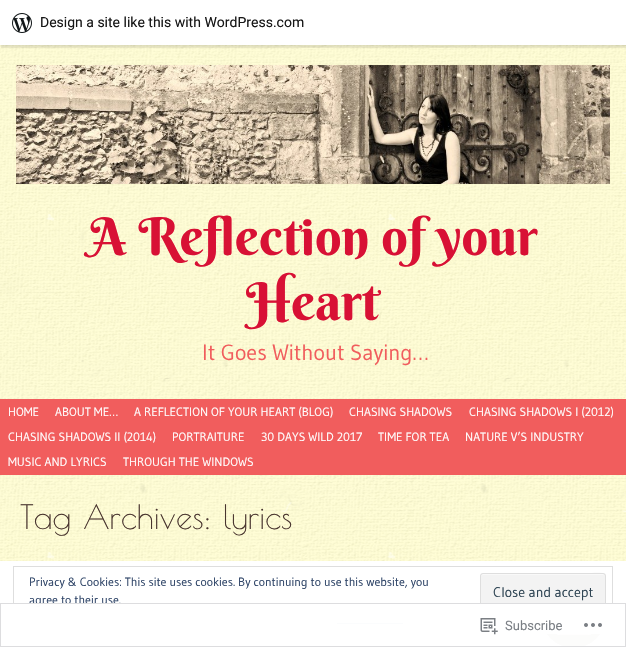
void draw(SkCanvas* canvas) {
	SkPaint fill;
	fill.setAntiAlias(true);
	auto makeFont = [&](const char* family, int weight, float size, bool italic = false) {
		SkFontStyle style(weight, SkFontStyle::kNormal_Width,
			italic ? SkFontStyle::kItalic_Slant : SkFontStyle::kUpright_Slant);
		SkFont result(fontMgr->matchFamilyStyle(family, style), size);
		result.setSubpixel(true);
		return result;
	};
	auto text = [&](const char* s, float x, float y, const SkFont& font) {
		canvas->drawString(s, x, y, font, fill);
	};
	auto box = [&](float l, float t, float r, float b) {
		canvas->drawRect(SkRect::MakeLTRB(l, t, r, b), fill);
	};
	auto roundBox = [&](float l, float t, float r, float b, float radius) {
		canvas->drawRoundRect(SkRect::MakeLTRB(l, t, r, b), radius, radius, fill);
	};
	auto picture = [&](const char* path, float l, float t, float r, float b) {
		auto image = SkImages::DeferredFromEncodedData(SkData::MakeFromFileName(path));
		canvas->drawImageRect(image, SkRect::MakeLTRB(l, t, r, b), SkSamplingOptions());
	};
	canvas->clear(0xFFFFFFFF);
	picture("image0.png", 0, 45, 626, 561);
	fill.setColor(0x0D000000);
	fill.setMaskFilter(SkMaskFilter::MakeBlur(kNormal_SkBlurStyle, 1));
	canvas->drawRect(SkRect::MakeLTRB(0, 1, 626, 46), fill);
	fill.setMaskFilter(nullptr);
	fill.setColor(0x14000000);
	canvas->drawPath(SkPathBuilder().moveTo(1, 45).lineTo(1, 48).lineTo(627, 48).lineTo(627, 3).lineTo(626, 3).lineTo(626, 45).close().detach(), fill);
	fill.setColor(0xFFFFFFFF);
	box(0, 0, 626, 45);
	picture("image1.png", 12, 13, 32, 33);
	picture("image2.png", 16, 65, 610, 184);
	fill.setColor(0xFFF15D5D);
	box(0, 399, 626, 475);
	fill.setColor(0xFF49352F);
	canvas->drawCircle(573.5f, 615.5f, 32.5f, fill);
	picture("image3.png", 557, 634, 591, 635);
	fill.setColor(0xFFFFFFFF);
	box(541, 583, 606, 633);
	fill.setStyle(SkPaint::kStroke_Style);
	fill.setStrokeWidth(1);
	fill.setColor(0xFFDEDEDE);
	canvas->drawRect(SkRect::MakeLTRB(13.5f, 566.5f, 612.5f, 633.5f), fill);
	fill.setStyle(SkPaint::kFill_Style);
	fill.setColor(0xFFF3F3F3);
	roundBox(480, 573, 606, 612, 3);
	fill.setColor(0xFFF9F9F9);
	canvas->drawPath(SkPathBuilder().moveTo(483, 575).lineTo(603, 575).lineTo(605, 576).lineTo(605, 577).cubicTo(605, 569, 589, 574, 583, 574).lineTo(482, 574).cubicTo(481, 575, 481, 576, 481, 577).cubicTo(481, 576, 482, 575, 483, 575).close().detach(), fill);
	fill.setStyle(SkPaint::kStroke_Style);
	fill.setColor(0xFFDEDEDE);
	canvas->drawRoundRect(SkRect::MakeLTRB(480.5f, 573.5f, 605.5f, 611.5f), 2.5f, 2.5f, fill);
	fill.setStyle(SkPaint::kFill_Style);
	fill.setColor(0xFF2E4467);
	box(337, 623, 403, 624);
	auto font1 = makeFont("Roboto", 400, 14);
	fill.setColor(0xFF171717);
	text("Design a site like this with WordPress.com", 40, 27, font1);
	auto font2 = makeFont("Berkshire Swash", 400, 52);
	fill.setColor(0xFFD81135);
	text("A Reflection of your", 88, 255, font2);
	text("Heart", 246, 320, font2);
	auto font3 = makeFont("Gudea", 400, 22);
	fill.setColor(0xFFF15D5D);
	text("It Goes Without Saying…", 202, 360, font3);
	auto font4 = makeFont("Gudea", 400, 12);
	fill.setColor(0xFFFFFFFF);
	text("HOME", 8, 416, font4);
	text("ABOUT ME…", 55, 416, font4);
	text("A REFLECTION OF YOUR HEART (BLOG)", 134, 416, font4);
	text("CHASING SHADOWS", 349, 416, font4);
	text("CHASING SHADOWS I (2012)", 469, 416, font4);
	text("CHASING SHADOWS II (2014)", 8, 441, font4);
	text("PORTRAITURE", 172, 441, font4);
	text("30 DAYS WILD 2017", 261, 441, font4);
	text("TIME FOR TEA", 378, 441, font4);
	text("NATURE V’S INDUSTRY", 465, 441, font4);
	text("MUSIC AND LYRICS", 8, 466, font4);
	text("THROUGH THE WINDOWS", 123, 466, font4);
	auto font5 = makeFont("Poiret One", 400, 33);
	fill.setColor(0xFF49352F);
	text("Tag Archives: lyrics", 20, 529, font5);
	fill.setColor(0xFF2E4467);
	text("Privacy & Cookies: This site uses cookies. By continuing to use this website, you", 29, 586, font4);
	text("agree to their use.", 29, 604, font4);
	auto font6 = makeFont("Gudea", 400, 14);
	fill.setColor(0xFF2E4453);
	text("Close and accept", 493, 597, font6);
	fill.setColor(0xFAFFFFFF);
	box(13, 603, 613, 647);
	fill.setStyle(SkPaint::kStroke_Style);
	fill.setColor(0xFADCDCDE);
	canvas->drawRect(SkRect::MakeLTRB(0.5f, 603.5f, 625.5f, 646.5f), fill);
	picture("image4.png", 480, 618, 498, 635);
	auto font7 = makeFont("Roboto", 400, 13);
	fill.setStyle(SkPaint::kFill_Style);
	fill.setColor(0xFF7B7F85);
	text("Subscribe", 505, 630, font7);
	picture("image5.png", 584, 623, 602, 627);
}
